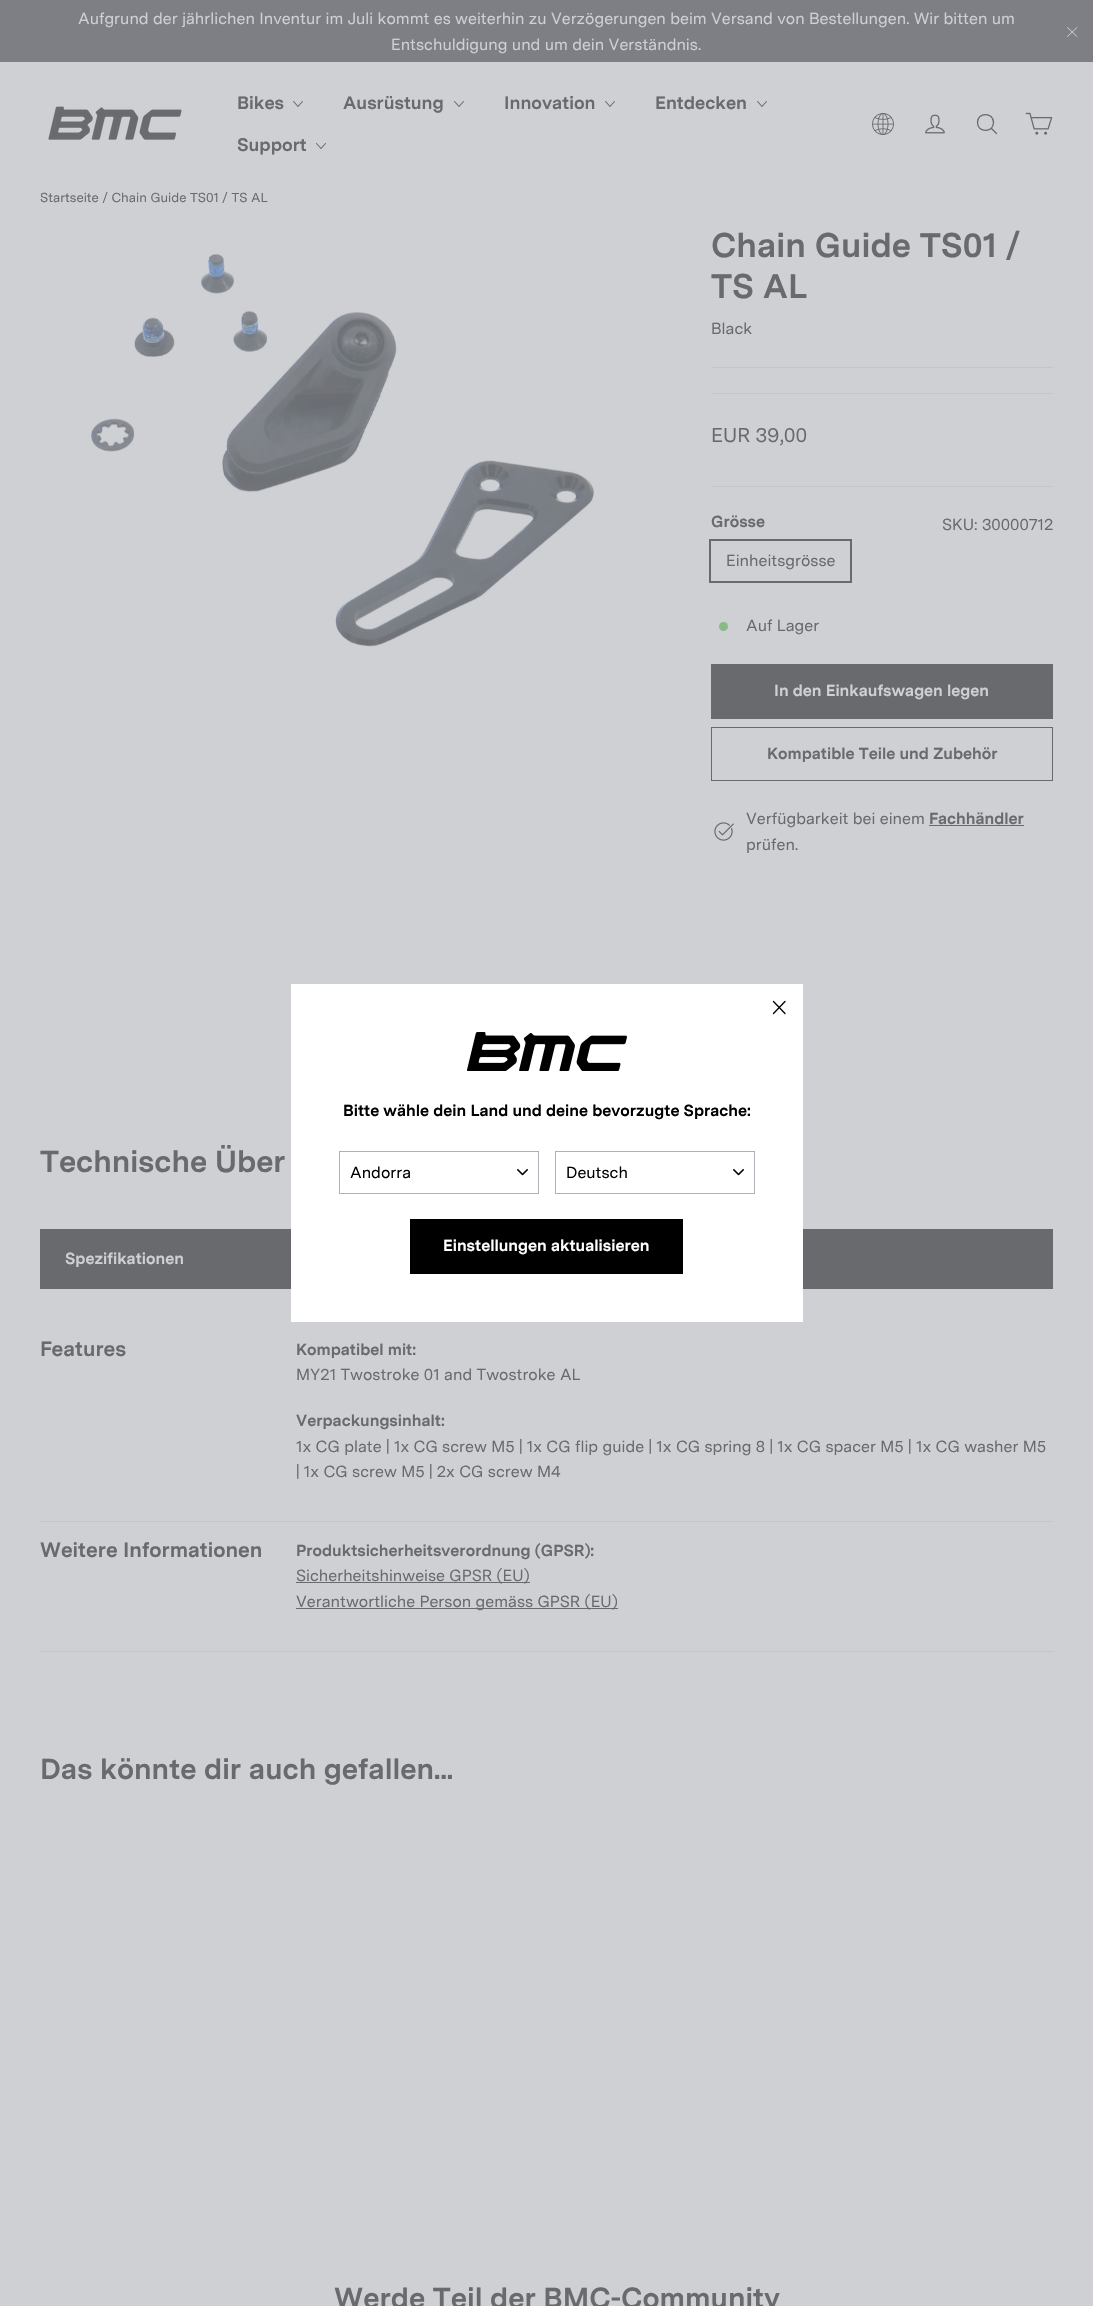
void draw(SkCanvas* canvas) {
	SkPaint fill;
	fill.setAntiAlias(true);
	auto makeFont = [&](const char* family, int weight, float size, bool italic = false) {
		SkFontStyle style(weight, SkFontStyle::kNormal_Width,
			italic ? SkFontStyle::kItalic_Slant : SkFontStyle::kUpright_Slant);
		SkFont result(fontMgr->matchFamilyStyle(family, style), size);
		result.setSubpixel(true);
		return result;
	};
	auto text = [&](const char* s, float x, float y, const SkFont& font) {
		canvas->drawString(s, x, y, font, fill);
	};
	auto box = [&](float l, float t, float r, float b) {
		canvas->drawRect(SkRect::MakeLTRB(l, t, r, b), fill);
	};
	auto picture = [&](const char* path, float l, float t, float r, float b) {
		auto image = SkImages::DeferredFromEncodedData(SkData::MakeFromFileName(path));
		canvas->drawImageRect(image, SkRect::MakeLTRB(l, t, r, b), SkSamplingOptions());
	};
	canvas->clear(0xFFCED0D4);
	fill.setColor(0xFF7E7F84);
	box(0, 0, 1093, 62);
	fill.setStyle(SkPaint::kStroke_Style);
	fill.setStrokeWidth(1);
	fill.setStrokeCap(SkPaint::kRound_Cap);
	fill.setStrokeJoin(SkPaint::kRound_Join);
	fill.setColor(0xFFCED0D4);
	canvas->drawPath(SkPathBuilder().moveTo(1067.5f, 27.5f).lineTo(1077, 36.5f).moveTo(1077, 27.5f).lineTo(1067.5f, 36.5f).detach(), fill);
	picture("image0.png", 48, 106, 182, 140);
	fill.setStrokeWidth(1.1f);
	fill.setColor(0xFF686A6E);
	canvas->drawPath(SkPathBuilder().moveTo(293.5f, 101.5f).lineTo(298, 106.5f).lineTo(302.5f, 101.5f).detach(), fill);
	canvas->drawPath(SkPathBuilder().moveTo(454.5f, 101.5f).lineTo(459, 106.5f).lineTo(463.5f, 101.5f).detach(), fill);
	canvas->drawPath(SkPathBuilder().moveTo(605.5f, 101.5f).lineTo(610, 106.5f).lineTo(614.5f, 101.5f).detach(), fill);
	canvas->drawPath(SkPathBuilder().moveTo(757.5f, 101.5f).lineTo(762, 106.5f).lineTo(766.5f, 101.5f).detach(), fill);
	canvas->drawPath(SkPathBuilder().moveTo(316.5f, 143.5f).lineTo(321, 148.5f).lineTo(325.5f, 143.5f).detach(), fill);
	picture("image1.png", 872, 113, 894, 135);
	picture("image2.png", 925, 114, 945, 134);
	fill.setStrokeWidth(1.3f);
	canvas->drawPath(SkPathBuilder().moveTo(993.5f, 122.5f).cubicTo(993.5f, 133, 977.5f, 133, 977.5f, 122.5f).cubicTo(977.5f, 112, 993.5f, 112, 993.5f, 122.5f).close().moveTo(996.5f, 133.5f).lineTo(991.5f, 128.5f).detach(), fill);
	picture("image3.png", 1025, 112, 1053, 135);
	picture("image4.png", 89, 252, 595, 647);
	fill.setStyle(SkPaint::kFill_Style);
	fill.setColor(0xFFC4C5CA);
	box(711, 367, 1053, 368);
	box(711, 393, 1053, 394);
	box(711, 486, 1053, 487);
	fill.setStyle(SkPaint::kStroke_Style);
	fill.setStrokeWidth(2);
	fill.setStrokeCap(SkPaint::kButt_Cap);
	fill.setStrokeJoin(SkPaint::kMiter_Join);
	fill.setColor(0xFF686A6E);
	canvas->drawRect(SkRect::MakeLTRB(710, 540, 851, 582), fill);
	fill.setStyle(SkPaint::kFill_Style);
	fill.setColor(0xFF8AB986);
	canvas->drawCircle(723.5f, 626.5f, 4.5f, fill);
	{
		const SkColor colors[] = {0xFF686A6E, 0xFFCED0D4};
		const float stops[] = {0.5f, 0.5f};
		const SkPoint ends[] = {{851, 951}, {332, 432}};
		fill.setShader(SkGradientShader::MakeLinear(ends, colors, stops, 2, SkTileMode::kClamp));
		fill.setAlpha(255);
	}
	box(712, 665, 1052, 718);
	fill.setStyle(SkPaint::kStroke_Style);
	fill.setStrokeWidth(1);
	fill.setShader(nullptr);
	fill.setColor(0xFF686A6E);
	canvas->drawRect(SkRect::MakeLTRB(711.5f, 664.5f, 1052.5f, 718.5f), fill);
	canvas->drawRect(SkRect::MakeLTRB(711.5f, 727.5f, 1052.5f, 780.5f), fill);
	picture("image5.png", 714, 822, 734, 841);
	fill.setStyle(SkPaint::kFill_Style);
	box(929, 825, 1024, 826);
	box(40, 1229, 1053, 1289);
	fill.setColor(0xFFC4C5CA);
	box(40, 1521, 1053, 1522);
	box(40, 1651, 1053, 1652);
	fill.setColor(0xFF686A6E);
	box(296, 1582, 530, 1583);
	box(296, 1608, 618, 1609);
	fill.setColor(0xFFFFFFFF);
	box(291, 984, 803, 1322);
	picture("image6.png", 467, 1032, 627, 1071);
	fill.setStyle(SkPaint::kStroke_Style);
	fill.setStrokeWidth(1.3f);
	fill.setStrokeCap(SkPaint::kRound_Cap);
	fill.setStrokeJoin(SkPaint::kRound_Join);
	fill.setColor(0xFF000000);
	canvas->drawPath(SkPathBuilder().moveTo(773.5f, 1001.5f).lineTo(785, 1013.5f).moveTo(785, 1001.5f).lineTo(773.5f, 1013.5f).detach(), fill);
	picture("image7.png", 517, 1169, 528, 1176);
	fill.setStrokeWidth(1);
	fill.setStrokeCap(SkPaint::kButt_Cap);
	fill.setStrokeJoin(SkPaint::kMiter_Join);
	fill.setColor(0xFFAEB1B8);
	canvas->drawRect(SkRect::MakeLTRB(339.5f, 1151.5f, 538.5f, 1193.5f), fill);
	picture("image7.png", 733, 1169, 744, 1176);
	canvas->drawRect(SkRect::MakeLTRB(555.5f, 1151.5f, 754.5f, 1193.5f), fill);
	fill.setStyle(SkPaint::kFill_Style);
	{
		const SkColor colors[] = {0xFF000000, 0xFFFFFFFF};
		const float stops[] = {0.5f, 0.5f};
		const SkPoint ends[] = {{525, 1456}, {105, 1037}};
		fill.setShader(SkGradientShader::MakeLinear(ends, colors, stops, 2, SkTileMode::kClamp));
		fill.setAlpha(255);
	}
	box(411, 1220, 682, 1273);
	fill.setStyle(SkPaint::kStroke_Style);
	fill.setShader(nullptr);
	fill.setColor(0xFF000000);
	canvas->drawRect(SkRect::MakeLTRB(410.5f, 1219.5f, 682.5f, 1273.5f), fill);
	auto font1 = makeFont("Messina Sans", 400, 16);
	fill.setStyle(SkPaint::kFill_Style);
	fill.setColor(0xFFCED0D4);
	text("Aufgrund der jährlichen Inventur im Juli kommt es weiterhin zu Verzögerungen beim Versand von Bestellungen. Wir bitten um", 78, 24, font1);
	text("Entschuldigung und um dein Verständnis.", 391, 50, font1);
	auto font2 = makeFont("Messina Sans", 700, 18);
	fill.setColor(0xFF686A6E);
	text("Bikes", 237, 109, font2);
	text("Ausrüstung", 343, 109, font2);
	text("Innovation", 504, 109, font2);
	text("Entdecken", 655, 109, font2);
	text("Support", 237, 151, font2);
	auto font3 = makeFont("Messina Sans", 400, 13);
	text("Startseite / Chain Guide TS01 / TS AL", 40, 202, font3);
	auto font4 = makeFont("Messina Sans", 700, 34);
	text("Chain Guide TS01 /", 711, 257, font4);
	text("TS AL", 711, 298, font4);
	text("Black", 711, 334, font1);
	auto font5 = makeFont("Messina Sans", 400, 20);
	text("EUR 39,00", 711, 442, font5);
	auto font6 = makeFont("Messina Sans", 700, 16);
	text("Grösse", 711, 527, font6);
	text("SKU: 30000712", 942, 530, font1);
	text("Einheitsgrösse", 726, 566, font1);
	text("Auf Lager", 746, 631, font1);
	fill.setColor(0xFFCED0D4);
	text("In den Einkaufswagen legen", 774, 696, font6);
	fill.setColor(0xFF686A6E);
	text("Kompatible Teile und Zubehör", 767, 759, font6);
	text("Verfügbarkeit bei einem", 746, 824, font1);
	text("Fachhändler", 929, 824, font6);
	text("prüfen.", 746, 850, font1);
	auto font7 = makeFont("Messina Sans", 700, 30.5f);
	text("Technische Über", 40, 1172, font7);
	fill.setColor(0xFFCED0D4);
	text("Spezifikationen", 65, 1264, font6);
	auto font8 = makeFont("Messina Sans", 700, 20.75f);
	fill.setColor(0xFF686A6E);
	text("Features", 40, 1356, font8);
	text("Kompatibel mit:", 296, 1355, font6);
	text("MY21 Twostroke 01 and Twostroke AL", 296, 1380, font1);
	text("Verpackungsinhalt:", 296, 1426, font6);
	text("1x CG plate | 1x CG screw M5 | 1x CG flip guide | 1x CG spring 8 | 1x CG spacer M5 | 1x CG washer M5", 296, 1452, font1);
	text("| 1x CG screw M5 | 2x CG screw M4", 296, 1477, font1);
	text("Weitere Informationen", 40, 1557, font8);
	text("Produktsicherheitsverordnung (GPSR):", 296, 1556, font6);
	text("Sicherheitshinweise GPSR (EU)", 296, 1581, font1);
	text("Verantwortliche Person gemäss GPSR (EU)", 296, 1607, font1);
	auto font9 = makeFont("Messina Sans", 700, 28.9f);
	text("Das könnte dir auch gefallen...", 40, 1779, font9);
	text("Werde Teil der BMC-Community", 334, 2308, font9);
	fill.setColor(0xFF000000);
	text("Bitte wähle dein Land und deine bevorzugte Sprache:", 343, 1116, font6);
	text("Andorra", 350, 1178, font1);
	text("Deutsch", 566, 1178, font1);
	fill.setColor(0xFFFFFFFF);
	text("Einstellungen aktualisieren", 443, 1251, font6);
}
